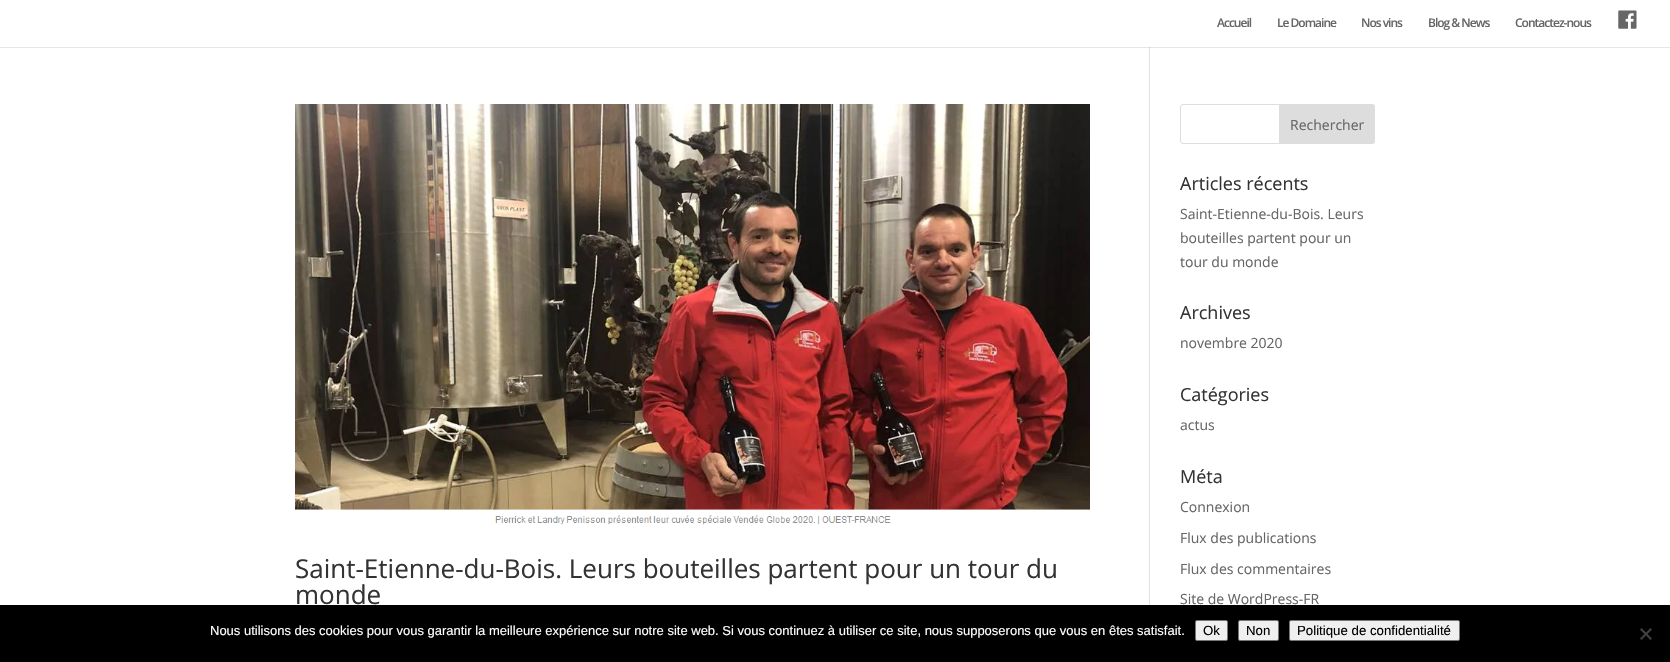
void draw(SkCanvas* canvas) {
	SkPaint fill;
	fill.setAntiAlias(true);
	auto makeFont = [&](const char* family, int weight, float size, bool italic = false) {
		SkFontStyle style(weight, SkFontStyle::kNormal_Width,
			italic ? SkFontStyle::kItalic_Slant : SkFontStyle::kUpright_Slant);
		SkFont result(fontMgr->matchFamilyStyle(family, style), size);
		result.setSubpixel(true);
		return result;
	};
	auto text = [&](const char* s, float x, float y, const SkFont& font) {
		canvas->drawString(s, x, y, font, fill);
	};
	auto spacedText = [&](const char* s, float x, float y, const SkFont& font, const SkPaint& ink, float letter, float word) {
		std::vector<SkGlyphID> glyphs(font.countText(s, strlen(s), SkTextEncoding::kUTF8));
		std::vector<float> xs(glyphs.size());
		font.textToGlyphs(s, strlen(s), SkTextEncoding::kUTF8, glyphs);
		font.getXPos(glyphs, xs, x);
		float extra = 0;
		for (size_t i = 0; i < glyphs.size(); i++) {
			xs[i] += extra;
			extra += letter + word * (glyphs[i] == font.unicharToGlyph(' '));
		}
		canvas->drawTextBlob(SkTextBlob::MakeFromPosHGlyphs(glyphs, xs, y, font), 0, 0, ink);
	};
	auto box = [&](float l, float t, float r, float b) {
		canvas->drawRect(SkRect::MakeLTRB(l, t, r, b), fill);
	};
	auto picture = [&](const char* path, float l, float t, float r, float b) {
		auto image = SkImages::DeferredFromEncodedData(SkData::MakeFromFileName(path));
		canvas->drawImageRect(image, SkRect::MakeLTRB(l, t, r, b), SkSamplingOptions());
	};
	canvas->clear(0xFFFFFFFF);
	fill.setColor(0xFFE6E6E6);
	box(0, 47, 1670, 48);
	fill.setColor(0xFFE2E2E2);
	box(1149, 46, 1150, 605);
	fill.setColor(0xFFFFFFFF);
	box(1149, 46, 1150, 47);
	picture("image0.png", 1618, 10, 1637, 29);
	fill.setColor(0xFFCBCBCB);
	box(1149, 47, 1150, 48);
	picture("image1.png", 295, 104, 1090, 525);
	fill.setStyle(SkPaint::kStroke_Style);
	fill.setStrokeWidth(1);
	fill.setColor(0xFFDDDDDD);
	canvas->drawRoundRect(SkRect::MakeLTRB(1180.5f, 104.5f, 1374.5f, 143.5f), 2.5f, 2.5f, fill);
	fill.setStyle(SkPaint::kFill_Style);
	canvas->drawPath(SkPathBuilder().moveTo(1279.5f, 104.5f).lineTo(1372, 104.5f).cubicTo(1373.5f, 104.5f, 1374.5f, 105.5f, 1374.5f, 107).lineTo(1374.5f, 141).cubicTo(1374.5f, 142.5f, 1373.5f, 143.5f, 1372, 143.5f).lineTo(1279.5f, 143.5f).close().detach(), fill);
	fill.setStyle(SkPaint::kStroke_Style);
	canvas->drawPath(SkPathBuilder().moveTo(1279.5f, 104.5f).lineTo(1372, 104.5f).cubicTo(1373.5f, 104.5f, 1374.5f, 105.5f, 1374.5f, 107).lineTo(1374.5f, 141).cubicTo(1374.5f, 142.5f, 1373.5f, 143.5f, 1372, 143.5f).lineTo(1279.5f, 143.5f).close().detach(), fill);
	fill.setStyle(SkPaint::kFill_Style);
	fill.setColor(0xFF000000);
	box(0, 605, 1670, 662);
	fill.setColor(0xFFEFEFEF);
	canvas->drawRoundRect(SkRect::MakeLTRB(1195.5f, 620.5f, 1227.5f, 640.5f), 1.5f, 1.5f, fill);
	fill.setStyle(SkPaint::kStroke_Style);
	fill.setColor(0xFF767676);
	canvas->drawRoundRect(SkRect::MakeLTRB(1195.5f, 620.5f, 1227.5f, 640.5f), 1.5f, 1.5f, fill);
	fill.setStyle(SkPaint::kFill_Style);
	fill.setColor(0xFFEFEFEF);
	canvas->drawRoundRect(SkRect::MakeLTRB(1238.5f, 620.5f, 1278.5f, 640.5f), 1.5f, 1.5f, fill);
	fill.setStyle(SkPaint::kStroke_Style);
	fill.setColor(0xFF767676);
	canvas->drawRoundRect(SkRect::MakeLTRB(1238.5f, 620.5f, 1278.5f, 640.5f), 1.5f, 1.5f, fill);
	fill.setStyle(SkPaint::kFill_Style);
	fill.setColor(0xFFEFEFEF);
	canvas->drawRoundRect(SkRect::MakeLTRB(1289.5f, 620.5f, 1459.5f, 640.5f), 1.5f, 1.5f, fill);
	fill.setStyle(SkPaint::kStroke_Style);
	fill.setColor(0xFF767676);
	canvas->drawRoundRect(SkRect::MakeLTRB(1289.5f, 620.5f, 1459.5f, 640.5f), 1.5f, 1.5f, fill);
	fill.setStyle(SkPaint::kFill_Style);
	fill.setColor(0xFF404040);
	canvas->drawPath(SkPathBuilder().moveTo(1650.5f, 628).lineTo(1652, 629.5f).lineTo(1641.5f, 640).lineTo(1640, 638.5f).close().detach(), fill);
	canvas->drawPath(SkPathBuilder().moveTo(1640, 629.5f).lineTo(1641.5f, 628).lineTo(1652, 638.5f).lineTo(1650.5f, 640).close().detach(), fill);
	auto font1 = makeFont("Open Sans", 600, 12);
	fill.setColor(0xFF666666);
	spacedText("Accueil", 1217, 27, font1, fill, -1, 0);
	spacedText("Le Domaine", 1277, 27, font1, fill, -1, 0);
	spacedText("Nos vins", 1361, 27, font1, fill, -1, 0);
	spacedText("Blog & News", 1428, 27, font1, fill, -1, 0);
	spacedText("Contactez-nous", 1515, 27, font1, fill, -1, 0);
	auto font2 = makeFont("Open Sans", 400, 26);
	fill.setColor(0xFF333333);
	text("Saint-Etienne-du-Bois. Leurs bouteilles partent pour un tour du", 295, 578, font2);
	text("monde", 295, 604, font2);
	auto font3 = makeFont("Open Sans", 400, 14);
	fill.setColor(0xFF666666);
	text("Rechercher", 1290, 130, font3);
	auto font4 = makeFont("Open Sans", 400, 18);
	fill.setColor(0xFF333333);
	text("Articles récents", 1180, 190, font4);
	fill.setColor(0xFF666666);
	text("Saint-Etienne-du-Bois. Leurs", 1180, 219, font3);
	text("bouteilles partent pour un", 1180, 243, font3);
	text("tour du monde", 1180, 267, font3);
	fill.setColor(0xFF333333);
	text("Archives", 1180, 319, font4);
	fill.setColor(0xFF666666);
	text("novembre 2020", 1180, 348, font3);
	fill.setColor(0xFF333333);
	text("Catégories", 1180, 401, font4);
	fill.setColor(0xFF666666);
	text("actus", 1180, 430, font3);
	fill.setColor(0xFF333333);
	text("Méta", 1180, 483, font4);
	fill.setColor(0xFF666666);
	text("Connexion", 1180, 512, font3);
	text("Flux des publications", 1180, 543, font3);
	text("Flux des commentaires", 1180, 574, font3);
	text("Site de WordPress-FR", 1180, 604, font3);
	auto font5 = makeFont("Liberation Sans", 400, 13);
	fill.setColor(0xFFFFFFFF);
	text("Nous utilisons des cookies pour vous garantir la meilleure expérience sur notre site web. Si vous continuez à utiliser ce site, nous supposerons que vous en êtes satisfait.", 210, 635, font5);
	auto font6 = makeFont("Liberation Sans", 400, 13.25f);
	fill.setColor(0xFF000000);
	text("Ok", 1203, 635, font6);
	text("Non", 1246, 635, font6);
	text("Politique de confidentialité", 1297, 635, font6);
}
